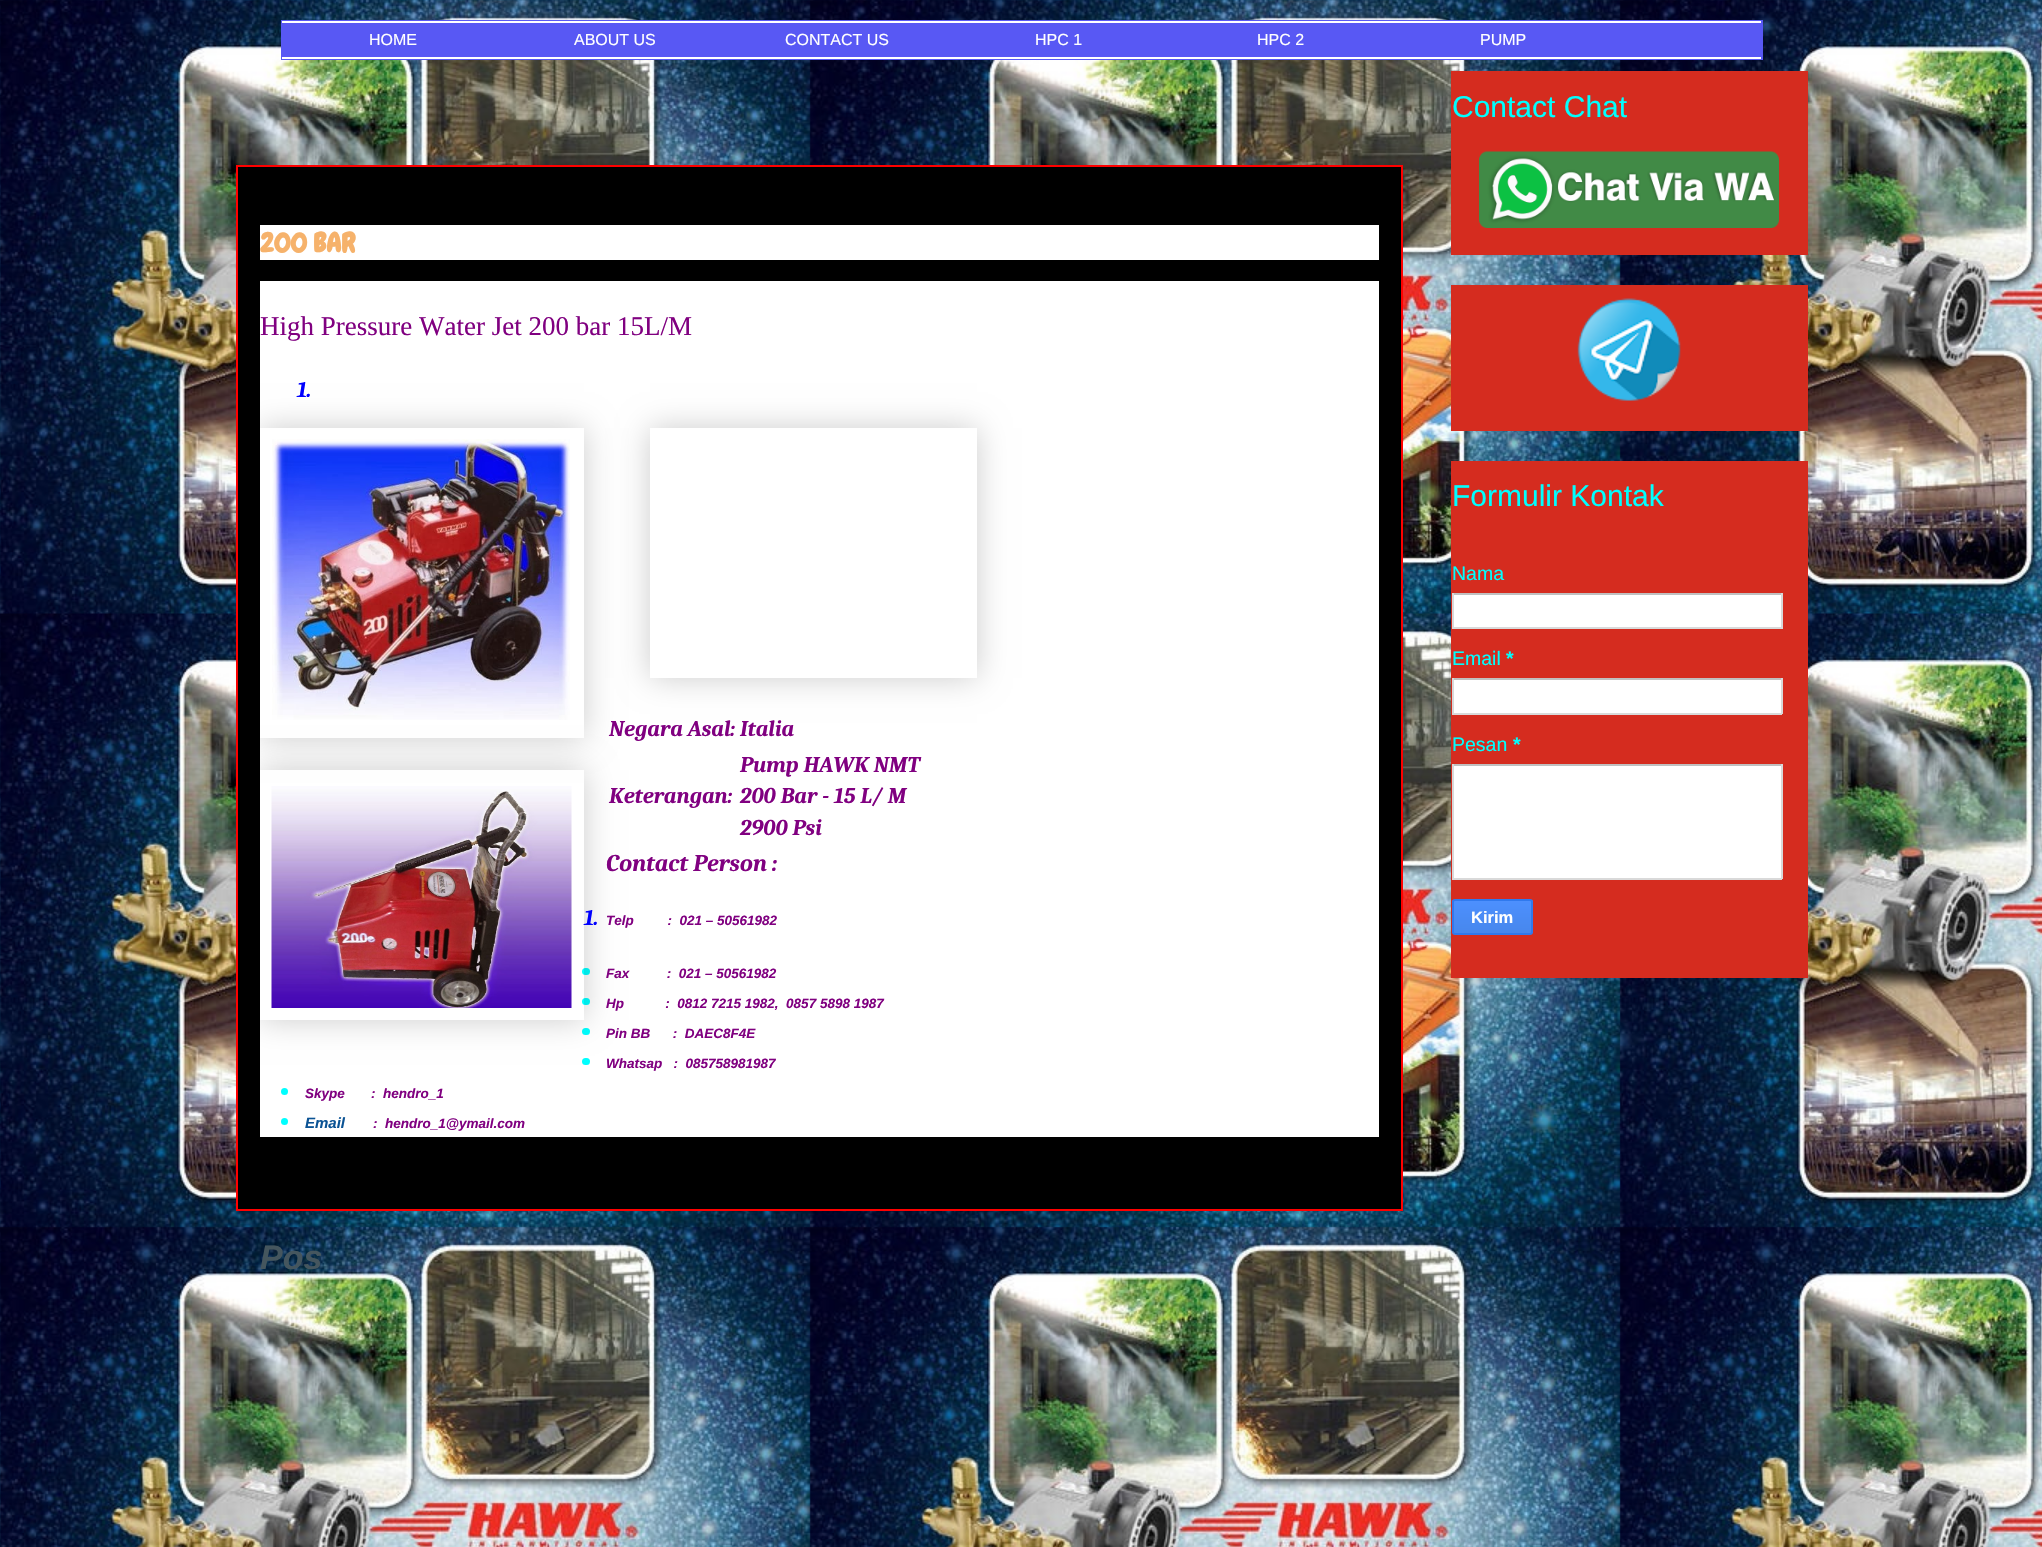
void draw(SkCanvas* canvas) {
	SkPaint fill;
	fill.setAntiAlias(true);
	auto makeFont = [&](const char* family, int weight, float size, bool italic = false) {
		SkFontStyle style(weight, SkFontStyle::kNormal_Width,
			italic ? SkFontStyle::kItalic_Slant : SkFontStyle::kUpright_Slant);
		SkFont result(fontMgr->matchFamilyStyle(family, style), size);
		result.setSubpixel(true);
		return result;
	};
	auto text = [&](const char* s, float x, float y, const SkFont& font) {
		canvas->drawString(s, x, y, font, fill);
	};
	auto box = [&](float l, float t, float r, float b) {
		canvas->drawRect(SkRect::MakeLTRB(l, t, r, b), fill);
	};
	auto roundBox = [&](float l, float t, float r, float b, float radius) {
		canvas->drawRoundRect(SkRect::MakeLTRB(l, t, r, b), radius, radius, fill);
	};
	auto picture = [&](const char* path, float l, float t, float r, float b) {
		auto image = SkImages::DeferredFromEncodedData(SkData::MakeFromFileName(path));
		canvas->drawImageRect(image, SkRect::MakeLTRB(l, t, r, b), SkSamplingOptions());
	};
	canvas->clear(0xFFFFFFFF);
	picture("image0.png", 0, 0, 2042, 1547);
	fill.setColor(0xFF5858F4);
	box(281, 20, 1763, 60);
	fill.setColor(0xFFFFFFFF);
	box(282, 21, 1761, 23);
	box(282, 57, 1761, 59);
	fill.setColor(0xFF000000);
	canvas->drawRect(SkRect::MakeLTRB(237, 166, 1402, 1210), fill);
	fill.setStyle(SkPaint::kStroke_Style);
	fill.setStrokeWidth(2);
	fill.setColor(0xFFFF0000);
	canvas->drawRect(SkRect::MakeLTRB(237, 166, 1402, 1210), fill);
	fill.setStyle(SkPaint::kFill_Style);
	fill.setColor(0xFFFFFFFF);
	box(260, 225, 1379, 260);
	box(260, 281, 1379, 1137);
	canvas->save();
	canvas->clipPath(SkPathBuilder(SkPathFillType::kEvenOdd).moveTo(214, 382).lineTo(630, 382).lineTo(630, 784).lineTo(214, 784).close().moveTo(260, 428).lineTo(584, 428).lineTo(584, 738).lineTo(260, 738).close().detach(), true);
	fill.setColor(0x33000000);
	fill.setMaskFilter(SkMaskFilter::MakeBlur(kNormal_SkBlurStyle, 15));
	canvas->drawRect(SkRect::MakeLTRB(260, 428, 584, 738), fill);
	fill.setMaskFilter(nullptr);
	canvas->restore();
	picture("image1.png", 272, 439, 570, 720);
	canvas->save();
	canvas->clipPath(SkPathBuilder(SkPathFillType::kEvenOdd).moveTo(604, 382).lineTo(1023, 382).lineTo(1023, 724).lineTo(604, 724).close().moveTo(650, 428).lineTo(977, 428).lineTo(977, 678).lineTo(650, 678).close().detach(), true);
	fill.setMaskFilter(SkMaskFilter::MakeBlur(kNormal_SkBlurStyle, 15));
	canvas->drawRect(SkRect::MakeLTRB(650, 428, 977, 678), fill);
	fill.setMaskFilter(nullptr);
	canvas->restore();
	fill.setColor(0xFF00FFFF);
	roundBox(582, 968, 590, 975, 3.5f);
	roundBox(582, 998, 590, 1005, 3.5f);
	roundBox(582, 1028, 590, 1035, 3.5f);
	roundBox(582, 1058, 590, 1065, 3.5f);
	canvas->save();
	canvas->clipPath(SkPathBuilder(SkPathFillType::kEvenOdd).moveTo(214, 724).lineTo(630, 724).lineTo(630, 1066).lineTo(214, 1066).close().moveTo(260, 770).lineTo(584, 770).lineTo(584, 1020).lineTo(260, 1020).close().detach(), true);
	fill.setColor(0x33000000);
	fill.setMaskFilter(SkMaskFilter::MakeBlur(kNormal_SkBlurStyle, 15));
	canvas->drawRect(SkRect::MakeLTRB(260, 770, 584, 1020), fill);
	fill.setMaskFilter(nullptr);
	canvas->restore();
	picture("image2.png", 271, 786, 572, 1008);
	fill.setColor(0xFF00FFFF);
	canvas->drawCircle(284.5f, 1091.5f, 3.5f, fill);
	canvas->drawCircle(284.5f, 1121.5f, 3.5f, fill);
	fill.setColor(0xFFD52C1F);
	box(1451, 71, 1808, 255);
	picture("image3.png", 1479, 151, 1779, 228);
	box(1451, 285, 1808, 431);
	picture("image4.png", 1577, 298, 1681, 401);
	box(1451, 461, 1808, 978);
	fill.setColor(0xFFFFFFFF);
	box(1454, 595, 1781, 627);
	fill.setColor(0xFFC0C0C0);
	box(1452, 593, 1782, 595);
	fill.setColor(0xFFD9D9D9);
	box(1781, 593, 1783, 629);
	box(1452, 627, 1782, 629);
	box(1452, 593, 1454, 629);
	fill.setColor(0xFFFFFFFF);
	box(1454, 680, 1781, 713);
	fill.setColor(0xFFC0C0C0);
	box(1452, 678, 1782, 680);
	fill.setColor(0xFFD9D9D9);
	box(1781, 678, 1783, 714);
	box(1452, 713, 1782, 715);
	box(1452, 678, 1454, 714);
	fill.setColor(0xFFFFFFFF);
	box(1454, 766, 1781, 878);
	fill.setColor(0xFFC0C0C0);
	box(1452, 764, 1782, 766);
	fill.setColor(0xFFD9D9D9);
	box(1781, 764, 1783, 879);
	box(1452, 878, 1782, 880);
	box(1452, 764, 1454, 879);
	canvas->save();
	canvas->clipPath(SkPathBuilder().moveTo(1455, 899).lineTo(1530, 899).cubicTo(1531.5f, 899, 1533, 900.5f, 1533, 902).lineTo(1533, 932).cubicTo(1533, 933.5f, 1531.5f, 935, 1530, 935).lineTo(1455, 935).cubicTo(1453.5f, 935, 1452, 933.5f, 1452, 932).lineTo(1452, 902).cubicTo(1452, 900.5f, 1453.5f, 899, 1455, 899).close().detach(), true);
	{
		const SkColor colors[] = {0xFF4D90FE, 0xFF4787ED};
		const float stops[] = {0, 1};
		const SkPoint ends[] = {{1493, 900}, {1493, 933}};
		fill.setShader(SkGradientShader::MakeLinear(ends, colors, stops, 2, SkTileMode::kClamp));
		fill.setAlpha(255);
	}
	box(1452, 900, 1533, 933);
	canvas->restore();
	fill.setStyle(SkPaint::kStroke_Style);
	fill.setShader(nullptr);
	fill.setColor(0xFF3079ED);
	canvas->drawRoundRect(SkRect::MakeLTRB(1453, 900, 1532, 934), 2, 2, fill);
	auto font1 = makeFont("Liberation Sans", 400, 16);
	fill.setStyle(SkPaint::kFill_Style);
	fill.setColor(0xFFFFFFFF);
	text("HOME", 369, 45, font1);
	text("ABOUT US", 574, 45, font1);
	text("CONTACT US", 785, 45, font1);
	text("HPC 1", 1035, 45, font1);
	text("HPC 2", 1257, 45, font1);
	text("PUMP", 1480, 45, font1);
	auto font2 = makeFont("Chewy", 700, 27);
	fill.setColor(0xFFF6B26B);
	text("200 BAR", 260, 252, font2);
	auto font3 = makeFont("Liberation Serif", 400, 27);
	fill.setColor(0xFF800080);
	text("High Pressure Water Jet 200 bar 15L/M", 260, 335, font3);
	auto font4 = makeFont("Caladea", 700, 22.5f, true);
	fill.setColor(0xFF0000FF);
	text("1.", 297, 397, font4);
	fill.setColor(0xFF800080);
	text("Negara Asal:", 609, 736, font4);
	text("Italia", 740, 736, font4);
	text("Keterangan:", 609, 803, font4);
	text("Pump HAWK NMT", 740, 772, font4);
	text("200 Bar - 15 L/ M", 740, 803, font4);
	text("2900 Psi", 740, 835, font4);
	auto font5 = makeFont("Caladea", 700, 24, true);
	text("Contact Person :", 606, 871, font5);
	fill.setColor(0xFF0000FF);
	text("1.", 584, 925, font4);
	auto font6 = makeFont("Liberation Sans", 700, 13.5f, true);
	fill.setColor(0xFF800080);
	text("Telp         :  021 – 50561982", 606, 925, font6);
	text("Fax          :  021 – 50561982", 606, 978, font6);
	text("Hp           :  0812 7215 1982,  0857 5898 1987", 606, 1008, font6);
	text("Pin BB      :  DAEC8F4E", 606, 1038, font6);
	text("Whatsap   :  085758981987", 606, 1068, font6);
	text("Skype       :  hendro_1", 305, 1098, font6);
	auto font7 = makeFont("Liberation Sans", 700, 15, true);
	fill.setColor(0xFF0B5394);
	text("Email", 305, 1128, font7);
	fill.setColor(0xFF800080);
	text(":  hendro_1@ymail.com", 373, 1128, font6);
	auto font8 = makeFont("Liberation Sans", 700, 34, true);
	fill.setColor(0xFF45565E);
	text("Pos", 260, 1269, font8);
	auto font9 = makeFont("Liberation Sans", 400, 30);
	fill.setColor(0xFF00FFFF);
	text("Contact Chat", 1452, 117, font9);
	text("Formulir Kontak", 1452, 506, font9);
	auto font10 = makeFont("Liberation Sans", 400, 19.5f);
	text("Nama", 1452, 580, font10);
	text("Email", 1452, 665, font10);
	auto font11 = makeFont("Liberation Sans", 700, 19.5f);
	text("*", 1506, 665, font11);
	text("Pesan", 1452, 751, font10);
	text("*", 1513, 751, font11);
	auto font12 = makeFont("Liberation Sans", 700, 16.5f);
	fill.setColor(0xFFFFFFFF);
	text("Kirim", 1471, 923, font12);
}
